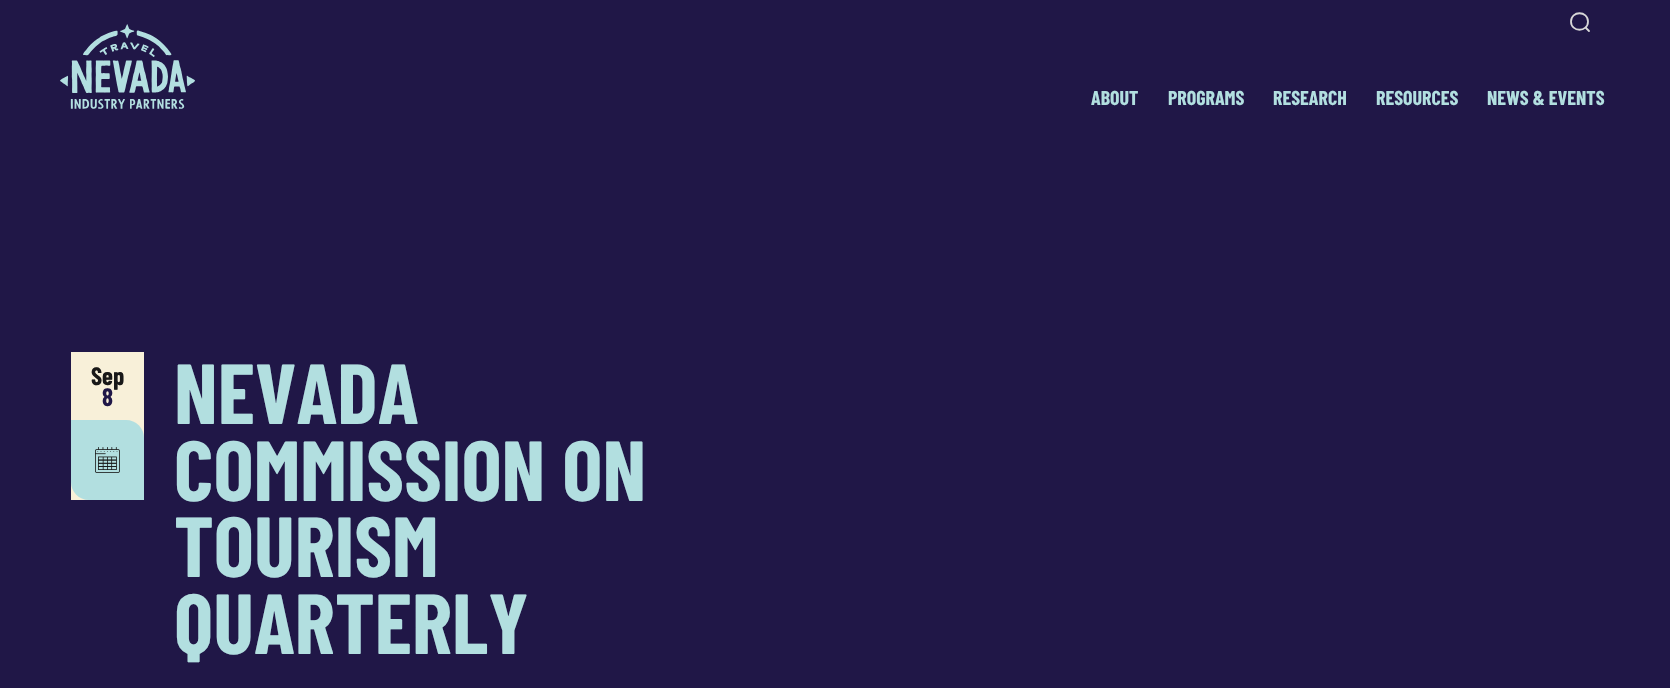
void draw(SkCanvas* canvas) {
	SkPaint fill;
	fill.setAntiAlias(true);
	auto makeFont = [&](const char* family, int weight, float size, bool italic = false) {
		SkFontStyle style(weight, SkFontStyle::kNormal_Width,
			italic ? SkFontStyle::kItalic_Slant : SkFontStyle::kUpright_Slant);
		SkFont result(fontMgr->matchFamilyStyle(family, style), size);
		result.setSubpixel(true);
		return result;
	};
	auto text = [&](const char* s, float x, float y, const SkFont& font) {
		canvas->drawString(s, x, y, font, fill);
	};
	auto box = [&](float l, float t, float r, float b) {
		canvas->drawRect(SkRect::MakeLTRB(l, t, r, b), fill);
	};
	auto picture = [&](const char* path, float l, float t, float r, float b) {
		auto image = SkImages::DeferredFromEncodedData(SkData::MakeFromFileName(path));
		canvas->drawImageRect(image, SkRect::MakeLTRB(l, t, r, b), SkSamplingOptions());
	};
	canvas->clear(0xFF201747);
	picture("image0.png", 60, 24, 195, 109);
	fill.setStyle(SkPaint::kStroke_Style);
	fill.setStrokeWidth(1.8f);
	fill.setStrokeCap(SkPaint::kRound_Cap);
	fill.setColor(0xFFD8D8D8);
	canvas->drawPath(SkPathBuilder().moveTo(1585.5f, 27.5f).lineTo(1589, 31).moveTo(1588, 21.5f).cubicTo(1588, 32.5f, 1571, 32.5f, 1571, 21.5f).cubicTo(1571, 10.5f, 1588, 10.5f, 1588, 21.5f).close().detach(), fill);
	fill.setStyle(SkPaint::kFill_Style);
	fill.setColor(0xFFF8F0D9);
	box(71, 352, 144, 500);
	fill.setColor(0xFFB2DFE0);
	canvas->drawPath(SkPathBuilder().moveTo(71, 420).lineTo(126, 420).cubicTo(136, 420, 144, 428, 144, 438).lineTo(144, 500).lineTo(89, 500).cubicTo(79, 500, 71, 492, 71, 482).close().detach(), fill);
	picture("image1.png", 95, 447, 120, 473);
	auto font1 = makeFont("Barlow Condensed", 700, 20);
	text("ABOUT", 1091, 105, font1);
	text("PROGRAMS", 1168, 105, font1);
	text("RESEARCH", 1273, 105, font1);
	text("RESOURCES", 1376, 105, font1);
	text("NEWS & EVENTS", 1487, 105, font1);
	auto font2 = makeFont("Barlow Condensed", 700, 25);
	fill.setColor(0xFF191818);
	text("Sep", 91, 385, font2);
	fill.setColor(0xFF201747);
	text("8", 102, 406, font2);
	auto font3 = makeFont("Barlow Condensed", 700, 85);
	fill.setColor(0xFFB2DFE0);
	text("NEVADA", 174, 424, font3);
	text("COMMISSION ON", 174, 501, font3);
	text("TOURISM", 174, 577, font3);
	text("QUARTERLY", 174, 654, font3);
}
